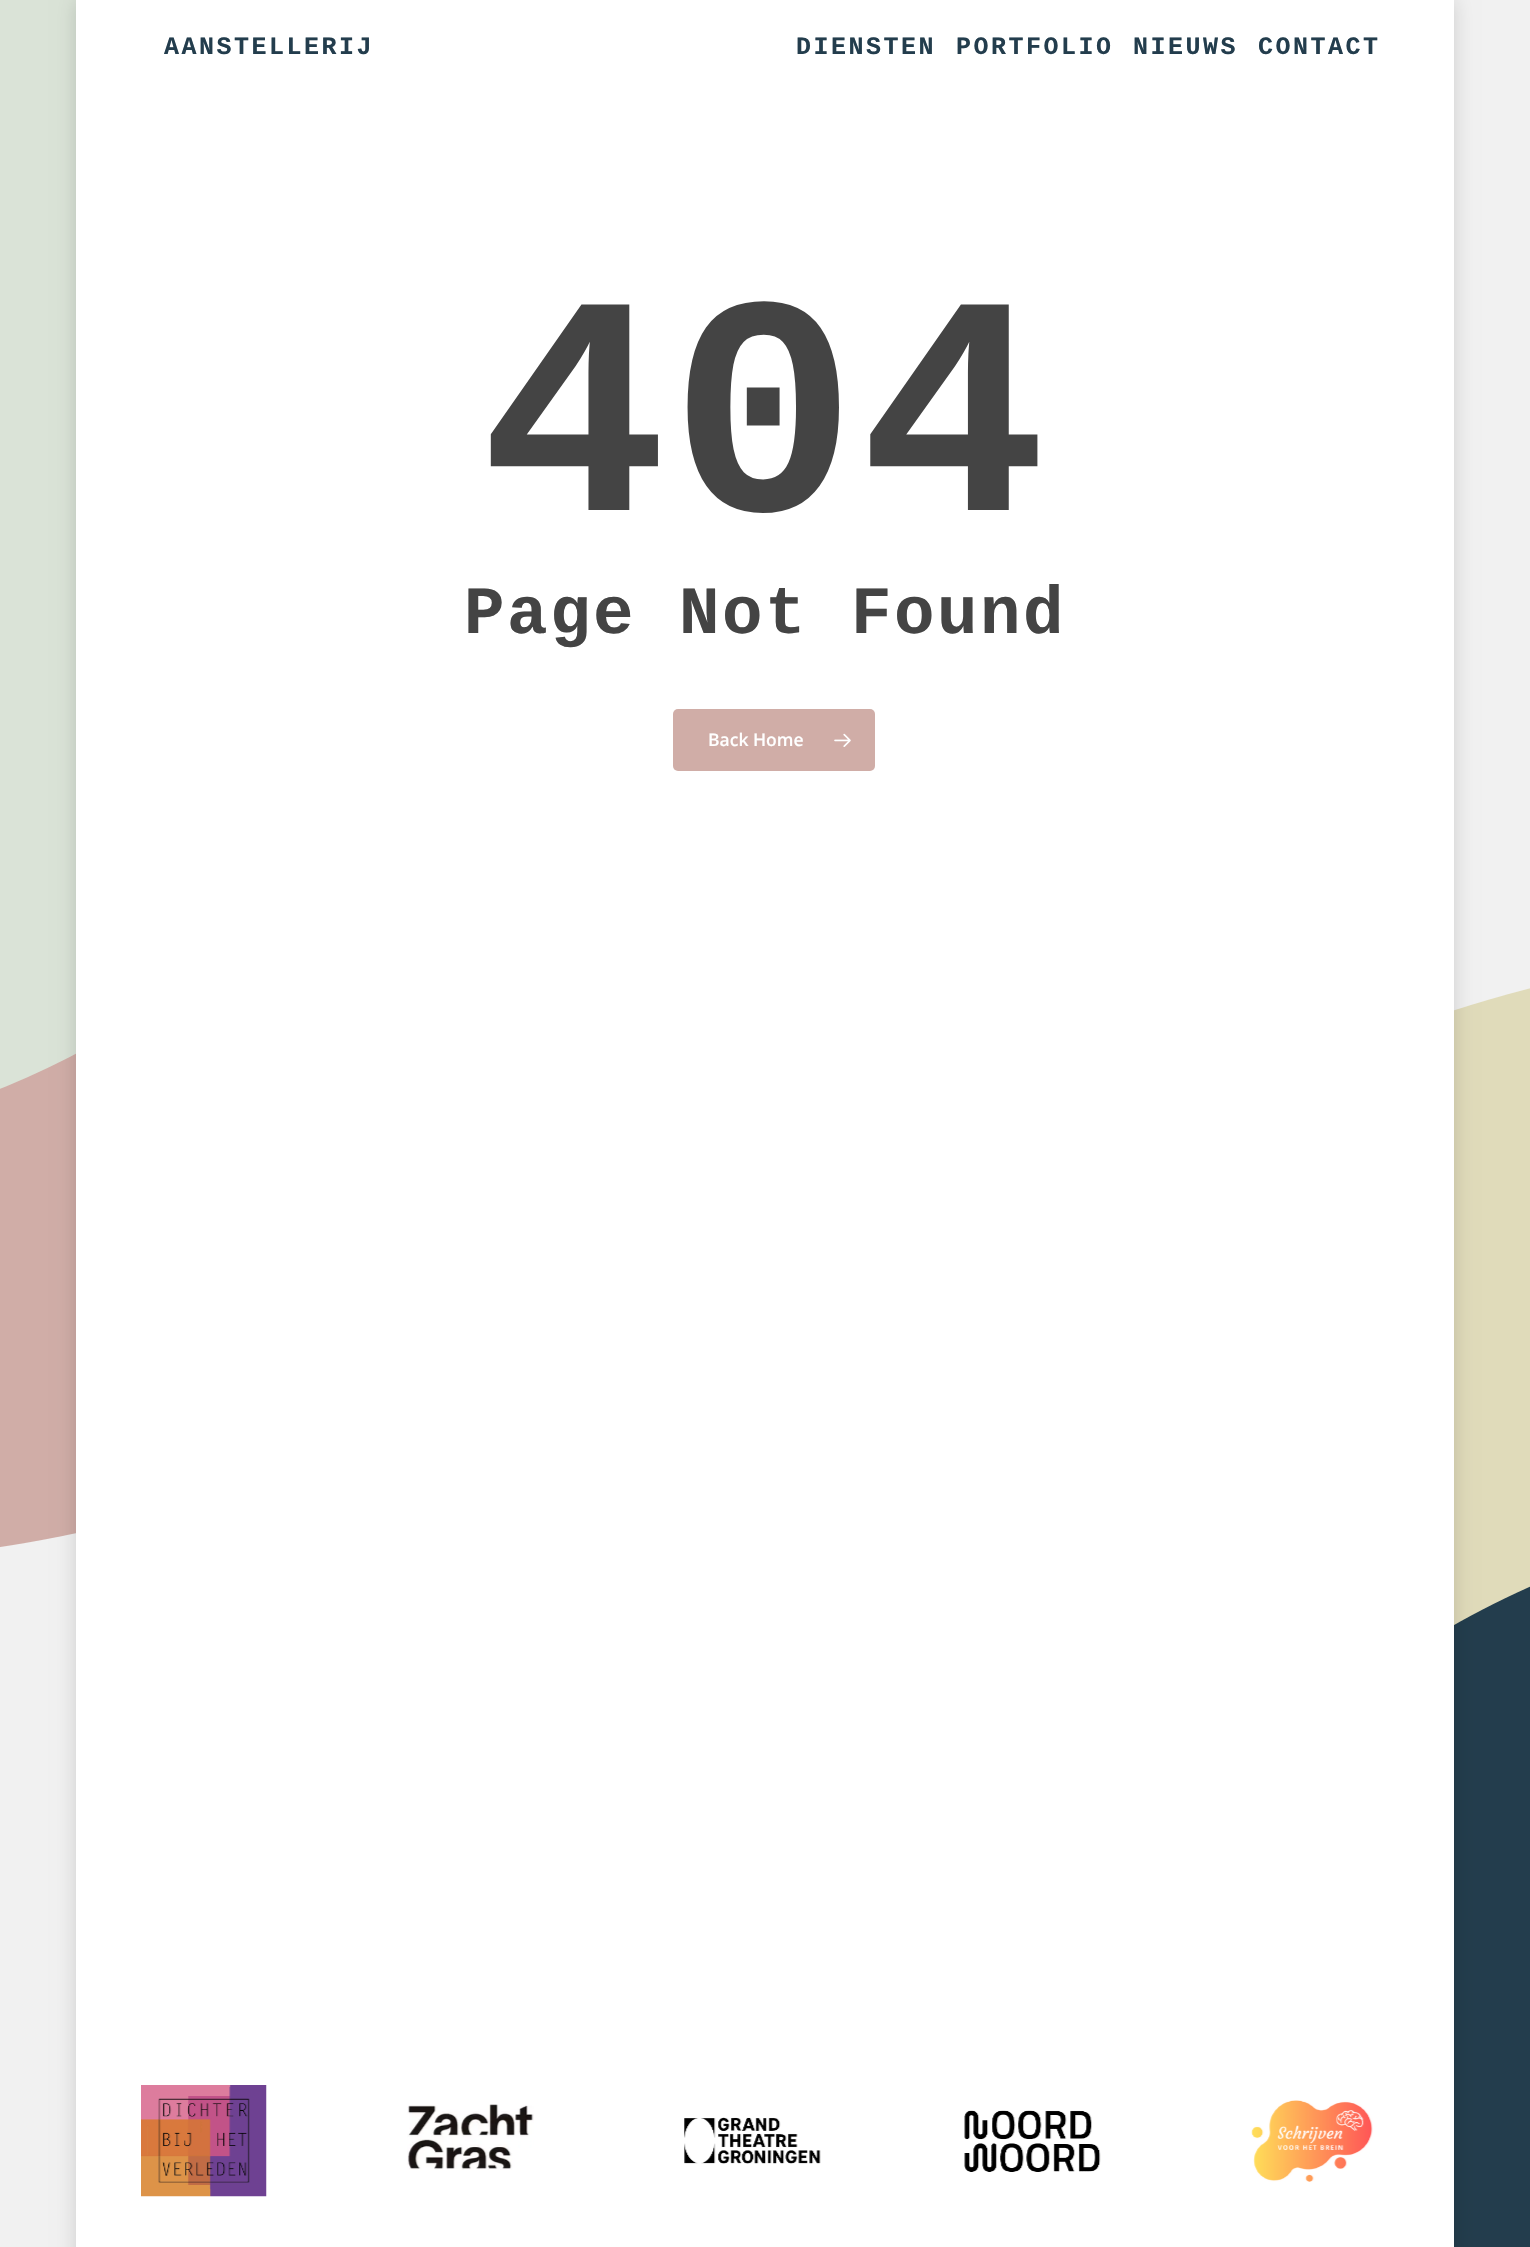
void draw(SkCanvas* canvas) {
	SkPaint fill;
	fill.setAntiAlias(true);
	auto makeFont = [&](const char* family, int weight, float size, bool italic = false) {
		SkFontStyle style(weight, SkFontStyle::kNormal_Width,
			italic ? SkFontStyle::kItalic_Slant : SkFontStyle::kUpright_Slant);
		SkFont result(fontMgr->matchFamilyStyle(family, style), size);
		result.setSubpixel(true);
		return result;
	};
	auto text = [&](const char* s, float x, float y, const SkFont& font) {
		canvas->drawString(s, x, y, font, fill);
	};
	auto spacedText = [&](const char* s, float x, float y, const SkFont& font, const SkPaint& ink, float letter, float word) {
		std::vector<SkGlyphID> glyphs(font.countText(s, strlen(s), SkTextEncoding::kUTF8));
		std::vector<float> xs(glyphs.size());
		font.textToGlyphs(s, strlen(s), SkTextEncoding::kUTF8, glyphs);
		font.getXPos(glyphs, xs, x);
		float extra = 0;
		for (size_t i = 0; i < glyphs.size(); i++) {
			xs[i] += extra;
			extra += letter + word * (glyphs[i] == font.unicharToGlyph(' '));
		}
		canvas->drawTextBlob(SkTextBlob::MakeFromPosHGlyphs(glyphs, xs, y, font), 0, 0, ink);
	};
	auto box = [&](float l, float t, float r, float b) {
		canvas->drawRect(SkRect::MakeLTRB(l, t, r, b), fill);
	};
	auto roundBox = [&](float l, float t, float r, float b, float radius) {
		canvas->drawRoundRect(SkRect::MakeLTRB(l, t, r, b), radius, radius, fill);
	};
	auto picture = [&](const char* path, float l, float t, float r, float b) {
		auto image = SkImages::DeferredFromEncodedData(SkData::MakeFromFileName(path));
		canvas->drawImageRect(image, SkRect::MakeLTRB(l, t, r, b), SkSamplingOptions());
	};
	canvas->clear(0xFFF1F1F1);
	picture("image0.png", 0, 0, 1530, 2247);
	fill.setColor(0x26000000);
	fill.setMaskFilter(SkMaskFilter::MakeBlur(kNormal_SkBlurStyle, 9.5f));
	canvas->drawRect(SkRect::MakeLTRB(76, 0, 1454, 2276), fill);
	fill.setMaskFilter(nullptr);
	fill.setColor(0xFFFFFFFF);
	box(76, 0, 1454, 95);
	box(76, 95, 1454, 2247);
	picture("image1.png", 141, 2085, 267, 2197);
	picture("image2.png", 407, 2104, 534, 2170);
	picture("image3.png", 684, 2117, 821, 2164);
	picture("image4.png", 964, 2110, 1101, 2172);
	picture("image5.png", 1251, 2100, 1373, 2182);
	fill.setColor(0xFFD0ADA7);
	roundBox(673, 709, 875, 771, 5);
	picture("image6.png", 834, 733, 851, 747);
	auto font1 = makeFont("Liberation Mono", 700, 25);
	fill.setColor(0xFF233D4D);
	spacedText("AANSTELLERIJ", 164, 54, font1, fill, 2.5f, 0);
	spacedText("DIENSTEN", 796, 54, font1, fill, 2.5f, 0);
	spacedText("PORTFOLIO", 956, 54, font1, fill, 2.5f, 0);
	spacedText("NIEUWS", 1133, 54, font1, fill, 2.5f, 0);
	spacedText("CONTACT", 1258, 54, font1, fill, 2.5f, 0);
	auto font2 = makeFont("Liberation Mono", 700, 312);
	fill.setColor(0xFF444444);
	spacedText("404", 480, 510, font2, fill, 2.5f, 0);
	auto font3 = makeFont("Liberation Mono", 700, 67.5f);
	spacedText("Page Not Found", 464, 633, font3, fill, 2.5f, 0);
	auto font4 = makeFont("Open Sans", 600, 17.5f);
	fill.setColor(0xFFFFFFFF);
	text("Back Home", 708, 746, font4);
}
